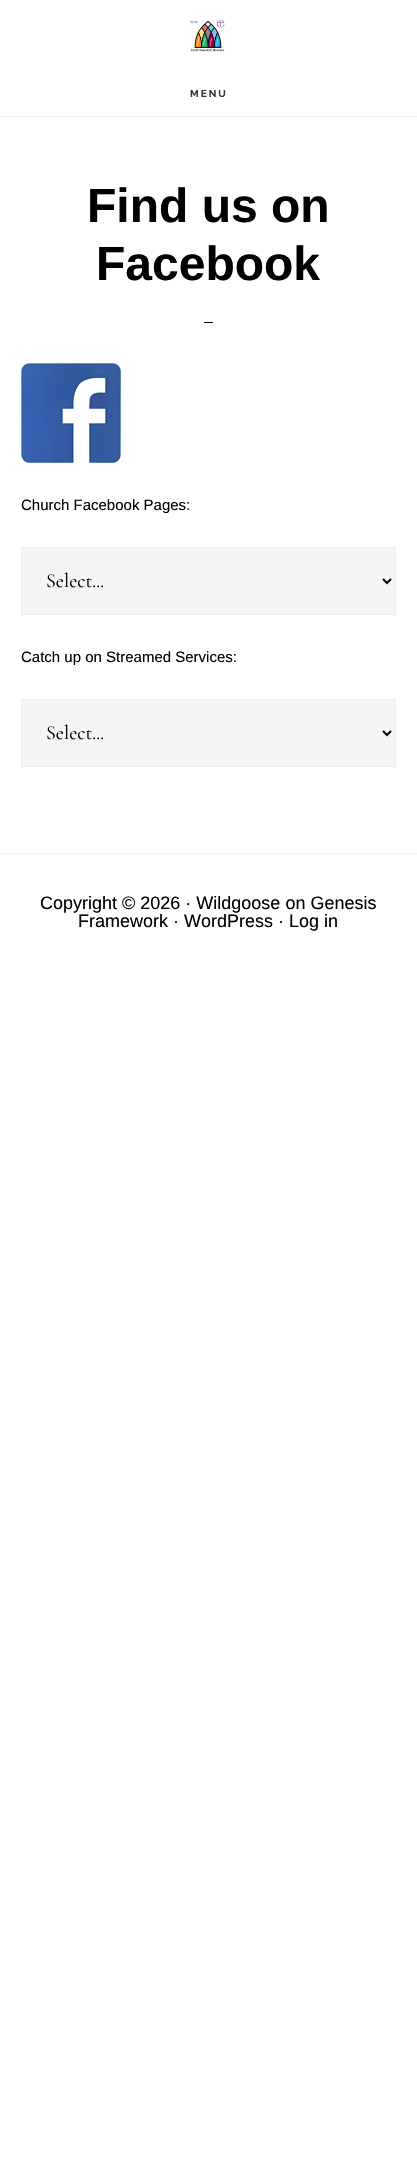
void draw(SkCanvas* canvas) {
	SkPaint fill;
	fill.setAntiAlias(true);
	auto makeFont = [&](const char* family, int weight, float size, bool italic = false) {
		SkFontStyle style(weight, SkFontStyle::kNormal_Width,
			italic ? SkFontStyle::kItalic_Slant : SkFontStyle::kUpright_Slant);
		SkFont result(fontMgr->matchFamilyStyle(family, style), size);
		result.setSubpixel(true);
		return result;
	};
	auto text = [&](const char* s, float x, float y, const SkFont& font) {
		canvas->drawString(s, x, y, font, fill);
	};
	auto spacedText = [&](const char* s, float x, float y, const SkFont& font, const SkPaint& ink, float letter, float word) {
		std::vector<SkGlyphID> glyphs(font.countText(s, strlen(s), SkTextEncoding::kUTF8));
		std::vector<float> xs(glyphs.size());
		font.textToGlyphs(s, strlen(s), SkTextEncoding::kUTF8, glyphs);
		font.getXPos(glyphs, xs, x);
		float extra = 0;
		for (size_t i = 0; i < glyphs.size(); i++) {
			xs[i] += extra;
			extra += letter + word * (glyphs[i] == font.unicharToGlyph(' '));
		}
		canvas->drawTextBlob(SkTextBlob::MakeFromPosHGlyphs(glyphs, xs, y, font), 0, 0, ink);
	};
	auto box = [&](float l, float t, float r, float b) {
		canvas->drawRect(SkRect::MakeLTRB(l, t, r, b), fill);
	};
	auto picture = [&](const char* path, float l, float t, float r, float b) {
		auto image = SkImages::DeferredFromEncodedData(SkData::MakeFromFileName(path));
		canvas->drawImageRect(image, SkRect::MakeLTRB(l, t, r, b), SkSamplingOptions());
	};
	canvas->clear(0xFFFFFFFF);
	fill.setColor(0xFFEEEEEE);
	box(0, 116, 417, 117);
	picture("image0.png", 190, 19, 225, 52);
	fill.setColor(0xFF000000);
	box(204, 322, 213, 323);
	picture("image1.png", 21, 363, 121, 463);
	fill.setColor(0xFFF5F5F5);
	canvas->drawRect(SkRect::MakeLTRB(21.5f, 547.5f, 395.5f, 614.5f), fill);
	fill.setStyle(SkPaint::kStroke_Style);
	fill.setStrokeWidth(1);
	fill.setColor(0xFFEEEEEE);
	canvas->drawRect(SkRect::MakeLTRB(21.5f, 547.5f, 395.5f, 614.5f), fill);
	fill.setStrokeWidth(2);
	fill.setColor(0xFF000000);
	canvas->drawPath(SkPathBuilder().moveTo(383, 579).lineTo(387, 583).lineTo(391, 579).detach(), fill);
	fill.setStyle(SkPaint::kFill_Style);
	fill.setColor(0xFFF5F5F5);
	canvas->drawRect(SkRect::MakeLTRB(21.5f, 699.5f, 395.5f, 766.5f), fill);
	fill.setStyle(SkPaint::kStroke_Style);
	fill.setStrokeWidth(1);
	fill.setColor(0xFFEEEEEE);
	canvas->drawRect(SkRect::MakeLTRB(21.5f, 699.5f, 395.5f, 766.5f), fill);
	fill.setStrokeWidth(2);
	fill.setColor(0xFF000000);
	canvas->drawPath(SkPathBuilder().moveTo(383, 731).lineTo(387, 735).lineTo(391, 731).detach(), fill);
	fill.setStyle(SkPaint::kFill_Style);
	fill.setColor(0xFFEEEEEE);
	box(0, 853, 417, 854);
	auto font1 = makeFont("Raleway", 100, 10);
	fill.setColor(0xFF333333);
	spacedText("MENU", 190, 97, font1, fill, 2, 0);
	auto font2 = makeFont("Liberation Sans", 700, 48);
	fill.setColor(0xFF000000);
	text("Find us on", 87, 222, font2);
	text("Facebook", 96, 280, font2);
	auto font3 = makeFont("Liberation Sans", 400, 15);
	text("Church Facebook Pages:", 21, 510, font3);
	auto font4 = makeFont("Cormorant Garamond", 400, 20);
	text("Select...", 46, 587, font4);
	text("Catch up on Streamed Services:", 21, 662, font3);
	text("Select...", 46, 739, font4);
	auto font5 = makeFont("Liberation Sans", 400, 18);
	text("Copyright © 2026 · Wildgoose on Genesis", 40, 909, font5);
	text("Framework · WordPress · Log in", 78, 927, font5);
}
